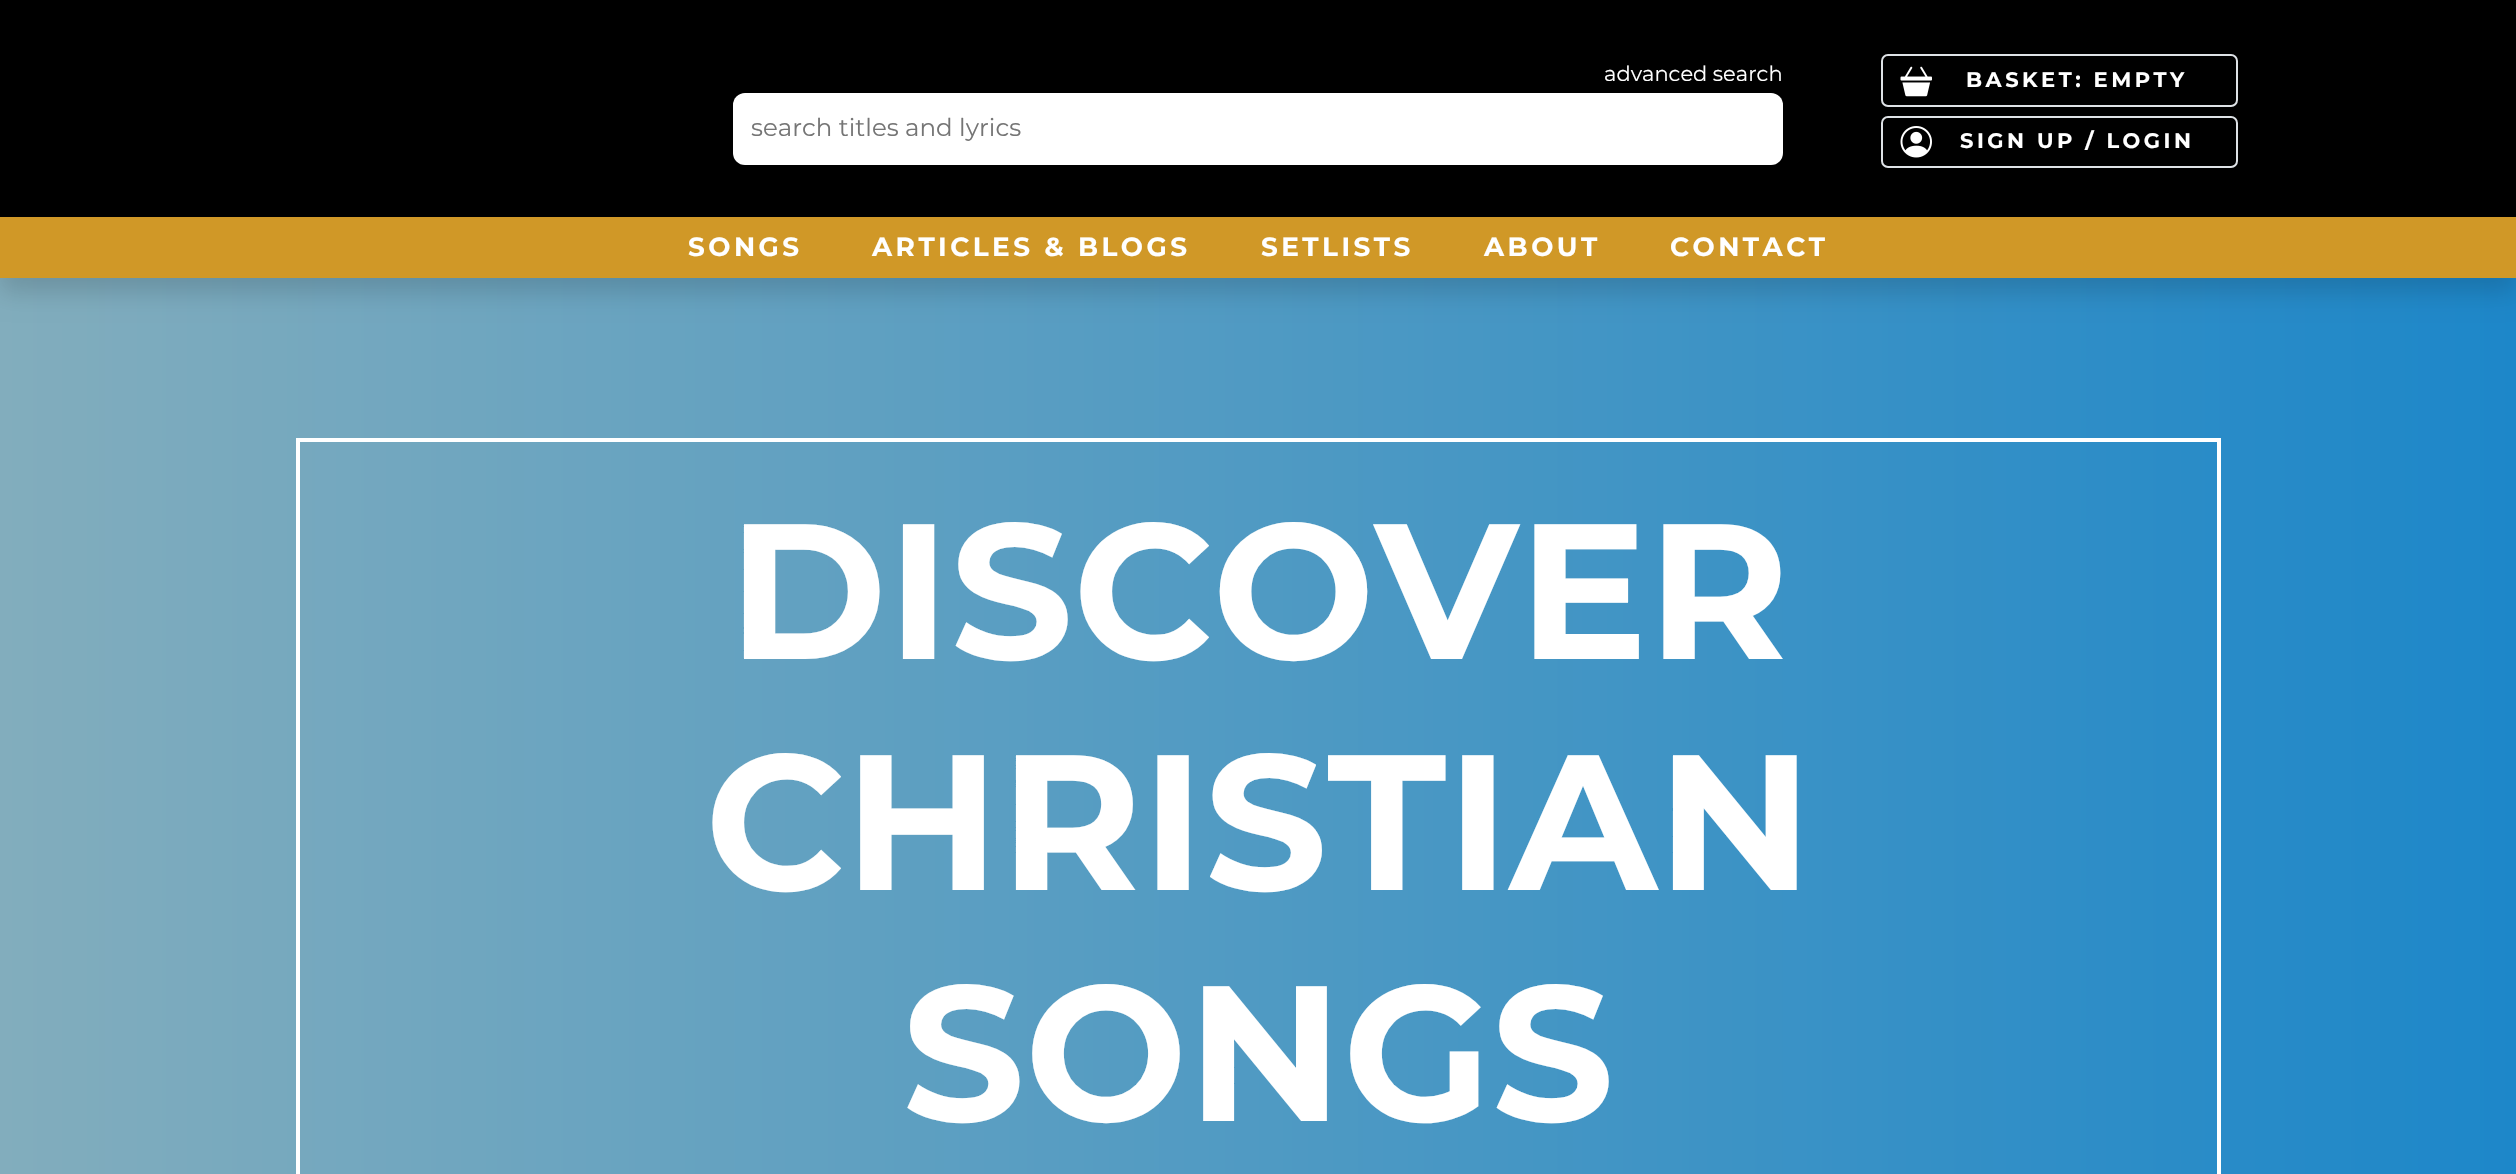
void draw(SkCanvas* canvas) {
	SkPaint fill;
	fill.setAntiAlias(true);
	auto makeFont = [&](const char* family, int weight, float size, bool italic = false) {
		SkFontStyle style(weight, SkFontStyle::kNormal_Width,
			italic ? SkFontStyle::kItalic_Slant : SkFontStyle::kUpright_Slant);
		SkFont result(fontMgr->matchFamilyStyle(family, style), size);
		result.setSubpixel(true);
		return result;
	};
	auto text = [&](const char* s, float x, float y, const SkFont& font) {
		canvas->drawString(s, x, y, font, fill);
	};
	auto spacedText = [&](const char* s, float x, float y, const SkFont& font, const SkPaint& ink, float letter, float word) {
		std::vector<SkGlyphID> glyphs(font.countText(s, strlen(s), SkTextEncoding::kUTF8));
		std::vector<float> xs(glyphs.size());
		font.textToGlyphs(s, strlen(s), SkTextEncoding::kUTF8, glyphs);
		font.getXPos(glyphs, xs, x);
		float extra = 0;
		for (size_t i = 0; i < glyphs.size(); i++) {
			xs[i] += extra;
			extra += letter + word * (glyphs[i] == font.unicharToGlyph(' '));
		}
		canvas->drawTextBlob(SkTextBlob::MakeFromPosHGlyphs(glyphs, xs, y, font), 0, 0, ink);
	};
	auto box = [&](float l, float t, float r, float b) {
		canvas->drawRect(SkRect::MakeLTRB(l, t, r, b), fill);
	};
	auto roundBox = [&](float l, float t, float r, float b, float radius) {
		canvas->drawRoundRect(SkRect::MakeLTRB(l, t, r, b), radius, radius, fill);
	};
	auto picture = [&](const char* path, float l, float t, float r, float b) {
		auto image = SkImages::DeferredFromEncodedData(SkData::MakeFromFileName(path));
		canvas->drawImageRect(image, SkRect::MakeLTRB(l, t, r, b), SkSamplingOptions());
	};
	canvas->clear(0xFFFFFFFF);
	{
		const SkColor colors[] = {0xFF82ADBD, 0xFF1D87C9};
		const float stops[] = {0, 1};
		const SkPoint ends[] = {{0, 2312}, {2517, 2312}};
		fill.setShader(SkGradientShader::MakeLinear(ends, colors, stops, 2, SkTileMode::kClamp));
		fill.setAlpha(255);
	}
	box(0, 278, 2516, 1174);
	fill.setShader(nullptr);
	fill.setColor(0xFF000000);
	box(0, 0, 2516, 217);
	fill.setColor(0xFFFFFFFF);
	roundBox(733, 93, 1783, 165, 12);
	fill.setStyle(SkPaint::kStroke_Style);
	fill.setStrokeWidth(2);
	fill.setColor(0xFFDEE2E6);
	canvas->drawRoundRect(SkRect::MakeLTRB(1882, 55, 2237, 106), 6, 6, fill);
	picture("image0.png", 1900, 66, 1932, 97);
	canvas->drawRoundRect(SkRect::MakeLTRB(1882, 117, 2237, 167), 6, 6, fill);
	picture("image1.png", 1900, 126, 1932, 158);
	fill.setStyle(SkPaint::kFill_Style);
	fill.setColor(0x26000000);
	fill.setMaskFilter(SkMaskFilter::MakeBlur(kNormal_SkBlurStyle, 13));
	canvas->drawRect(SkRect::MakeLTRB(0, 231, 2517, 292), fill);
	fill.setMaskFilter(nullptr);
	fill.setColor(0xFFD09827);
	box(0, 217, 2516, 278);
	fill.setStyle(SkPaint::kStroke_Style);
	fill.setStrokeWidth(4);
	fill.setColor(0xFFFFFFFF);
	canvas->drawRect(SkRect::MakeLTRB(298, 440, 2219, 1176), fill);
	auto font1 = makeFont("Montserrat", 400, 21);
	fill.setStyle(SkPaint::kFill_Style);
	text("advanced search", 1604, 81, font1);
	auto font2 = makeFont("Montserrat", 400, 24.5f);
	fill.setColor(0xFF757575);
	text("search titles and lyrics", 751, 136, font2);
	auto font3 = makeFont("Montserrat", 700, 21);
	fill.setColor(0xFFFFFFFF);
	spacedText("BASKET: EMPTY", 1966, 87, font3, fill, 3.5f, 0);
	spacedText("SIGN UP / LOGIN", 1960, 148, font3, fill, 3.5f, 0);
	auto font4 = makeFont("Montserrat", 700, 26.25f);
	spacedText("SONGS", 688, 256, font4, fill, 3.5f, 0);
	spacedText("ARTICLES & BLOGS", 872, 256, font4, fill, 3.5f, 0);
	spacedText("SETLISTS", 1261, 256, font4, fill, 3.5f, 0);
	spacedText("ABOUT", 1484, 256, font4, fill, 3.5f, 0);
	spacedText("CONTACT", 1670, 256, font4, fill, 3.5f, 0);
	auto font5 = makeFont("Montserrat", 700, 192.5f);
	text("DISCOVER", 728, 659, font5);
	text("CHRISTIAN", 705, 890, font5);
	text("SONGS", 902, 1121, font5);
}
